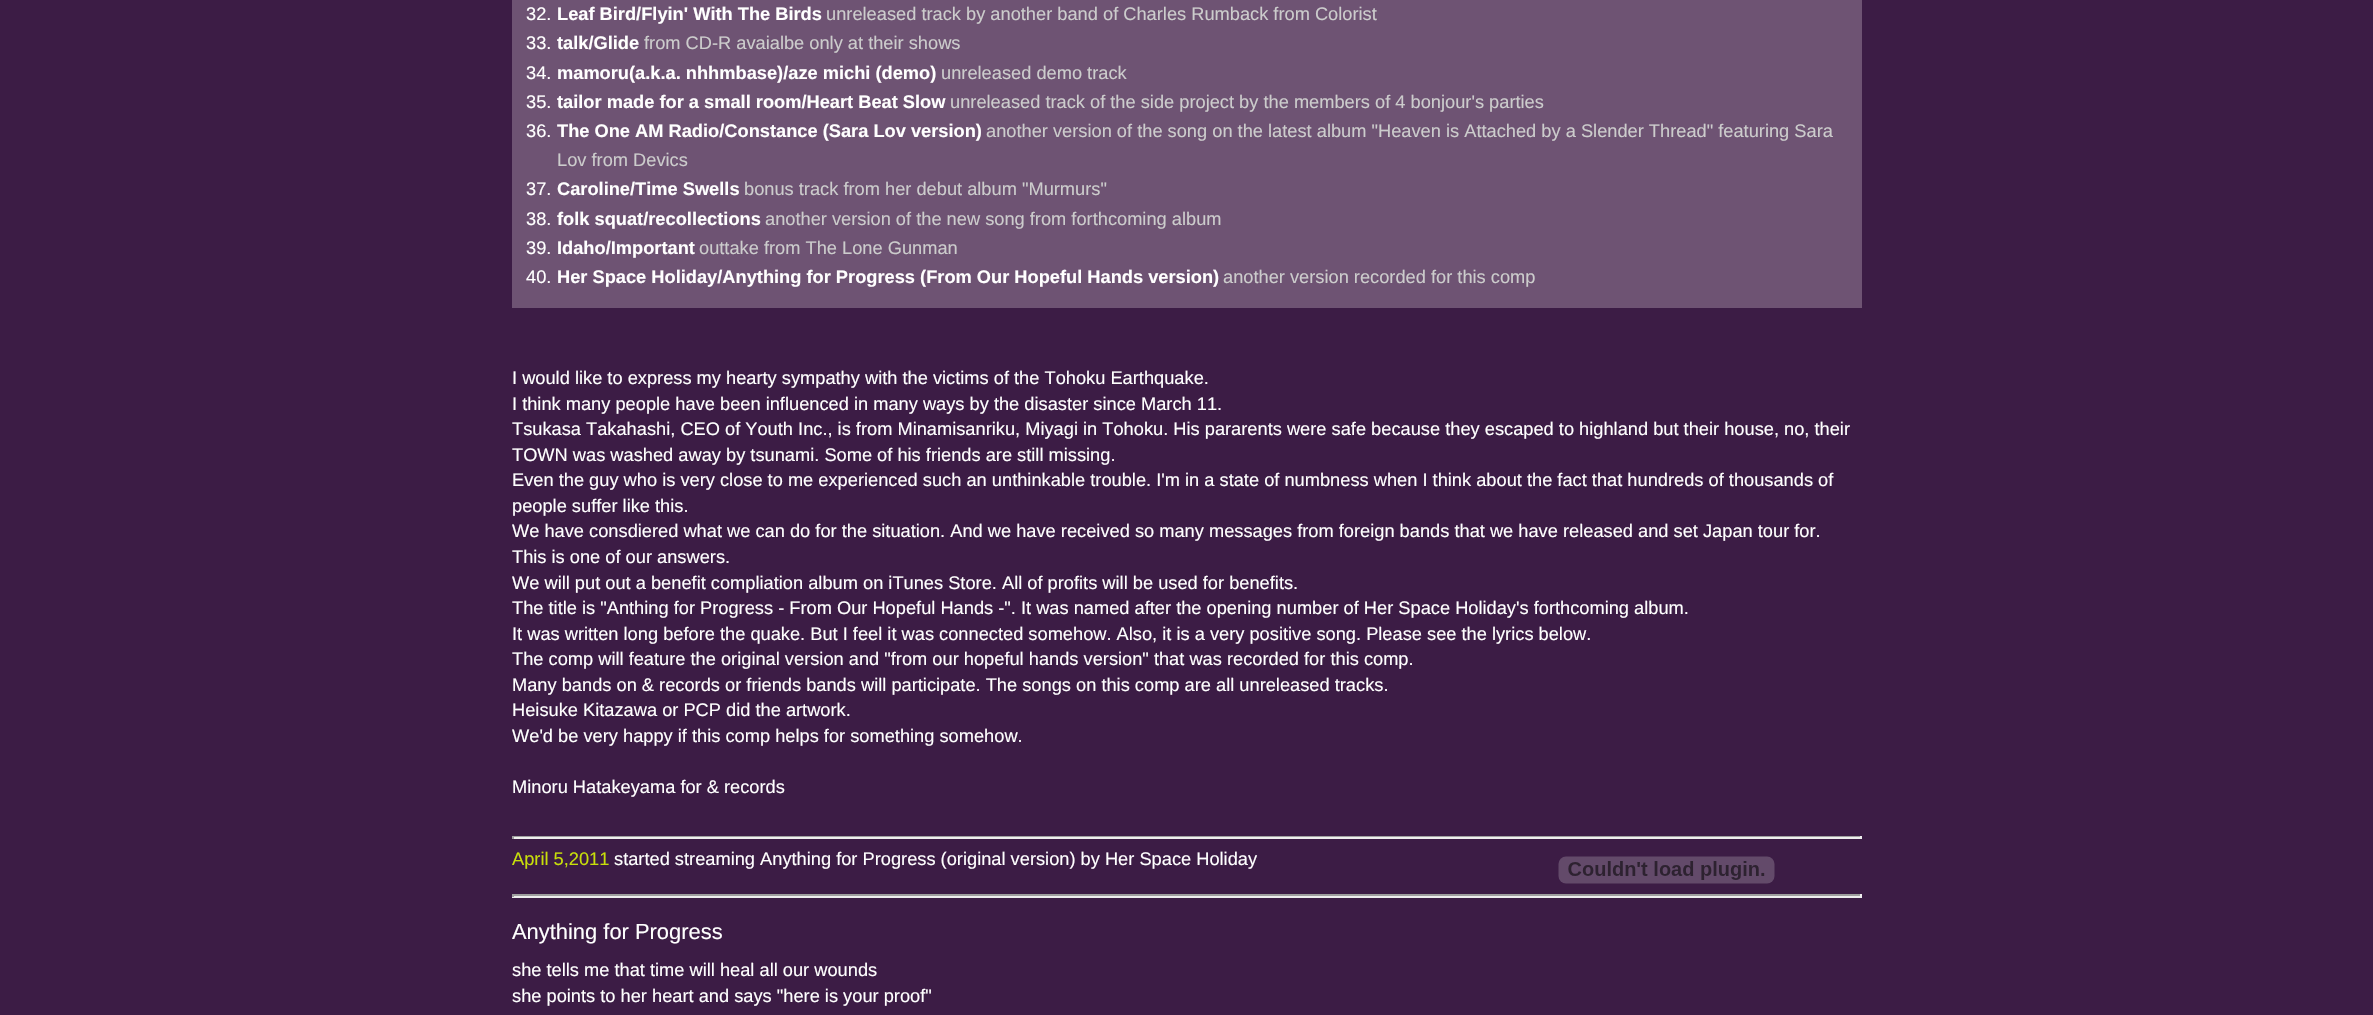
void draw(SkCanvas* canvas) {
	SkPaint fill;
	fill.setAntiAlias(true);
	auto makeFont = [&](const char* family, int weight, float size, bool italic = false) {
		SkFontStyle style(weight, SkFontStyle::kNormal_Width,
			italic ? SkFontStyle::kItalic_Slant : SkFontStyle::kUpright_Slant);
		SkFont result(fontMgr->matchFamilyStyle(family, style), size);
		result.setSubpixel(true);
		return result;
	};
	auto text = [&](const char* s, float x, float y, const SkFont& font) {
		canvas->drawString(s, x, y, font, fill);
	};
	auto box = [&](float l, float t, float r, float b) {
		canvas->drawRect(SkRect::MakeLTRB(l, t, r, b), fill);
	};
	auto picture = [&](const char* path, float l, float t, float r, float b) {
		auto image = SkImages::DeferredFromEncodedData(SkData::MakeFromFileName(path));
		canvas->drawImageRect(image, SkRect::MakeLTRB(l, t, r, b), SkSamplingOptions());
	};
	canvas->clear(0xFF3C1C45);
	fill.setColor(0xFF6E5373);
	box(512, 0, 1862, 308);
	fill.setColor(0xFF9F9F9F);
	box(512, 836, 1862, 837);
	fill.setColor(0xFFEEEEEE);
	box(1860, 836, 1862, 839);
	box(512, 837, 1862, 839);
	fill.setColor(0xFF9F9F9F);
	box(512, 836, 514, 839);
	picture("image0.png", 1558, 856, 1775, 884);
	box(512, 894, 1862, 896);
	fill.setColor(0xFFEEEEEE);
	box(1860, 894, 1862, 897);
	box(512, 896, 1862, 898);
	fill.setColor(0xFF9F9F9F);
	box(512, 894, 514, 897);
	auto font1 = makeFont("Liberation Sans", 400, 18.25f);
	fill.setColor(0xFFFFFFFF);
	text("32.", 526, 20, font1);
	auto font2 = makeFont("Liberation Sans", 700, 18.25f);
	text("Leaf Bird/Flyin' With The Birds", 557, 20, font2);
	fill.setColor(0xFFCCCCCC);
	text("unreleased track by another band of Charles Rumback from Colorist", 826, 20, font1);
	fill.setColor(0xFFFFFFFF);
	text("33.", 526, 49, font1);
	text("talk/Glide", 557, 49, font2);
	fill.setColor(0xFFCCCCCC);
	text("from CD-R avaialbe only at their shows", 644, 49, font1);
	fill.setColor(0xFFFFFFFF);
	text("34.", 526, 79, font1);
	text("mamoru(a.k.a. nhhmbase)/aze michi (demo)", 557, 79, font2);
	fill.setColor(0xFFCCCCCC);
	text("unreleased demo track", 941, 79, font1);
	fill.setColor(0xFFFFFFFF);
	text("35.", 526, 108, font1);
	text("tailor made for a small room/Heart Beat Slow", 557, 108, font2);
	fill.setColor(0xFFCCCCCC);
	text("unreleased track of the side project by the members of 4 bonjour's parties", 950, 108, font1);
	fill.setColor(0xFFFFFFFF);
	text("36.", 526, 137, font1);
	text("The One AM Radio/Constance (Sara Lov version)", 557, 137, font2);
	fill.setColor(0xFFCCCCCC);
	text("another version of the song on the latest album \"Heaven is Attached by a Slender Thread\" featuring Sara", 986, 137, font1);
	text("Lov from Devics", 557, 166, font1);
	fill.setColor(0xFFFFFFFF);
	text("37.", 526, 195, font1);
	text("Caroline/Time Swells", 557, 195, font2);
	fill.setColor(0xFFCCCCCC);
	text("bonus track from her debut album \"Murmurs\"", 744, 195, font1);
	fill.setColor(0xFFFFFFFF);
	text("38.", 526, 225, font1);
	text("folk squat/recollections", 557, 225, font2);
	fill.setColor(0xFFCCCCCC);
	text("another version of the new song from forthcoming album", 765, 225, font1);
	fill.setColor(0xFFFFFFFF);
	text("39.", 526, 254, font1);
	text("Idaho/Important", 557, 254, font2);
	fill.setColor(0xFFCCCCCC);
	text("outtake from The Lone Gunman", 699, 254, font1);
	fill.setColor(0xFFFFFFFF);
	text("40.", 526, 283, font1);
	text("Her Space Holiday/Anything for Progress (From Our Hopeful Hands version)", 557, 283, font2);
	fill.setColor(0xFFCCCCCC);
	text("another version recorded for this comp", 1223, 283, font1);
	fill.setColor(0xFFFFFFFF);
	text("I would like to express my hearty sympathy with the victims of the Tohoku Earthquake.", 512, 384, font1);
	text("I think many people have been influenced in many ways by the disaster since March 11.", 512, 410, font1);
	text("Tsukasa Takahashi, CEO of Youth Inc., is from Minamisanriku, Miyagi in Tohoku. His pararents were safe because they escaped to highland but their house, no, their", 512, 435, font1);
	text("TOWN was washed away by tsunami. Some of his friends are still missing.", 512, 461, font1);
	text("Even the guy who is very close to me experienced such an unthinkable trouble. I'm in a state of numbness when I think about the fact that hundreds of thousands of", 512, 486, font1);
	text("people suffer like this.", 512, 512, font1);
	text("We have consdiered what we can do for the situation. And we have received so many messages from foreign bands that we have released and set Japan tour for.", 512, 537, font1);
	text("This is one of our answers.", 512, 563, font1);
	text("We will put out a benefit compliation album on iTunes Store. All of profits will be used for benefits.", 512, 589, font1);
	text("The title is \"Anthing for Progress - From Our Hopeful Hands -\". It was named after the opening number of Her Space Holiday's forthcoming album.", 512, 614, font1);
	text("It was written long before the quake. But I feel it was connected somehow. Also, it is a very positive song. Please see the lyrics below.", 512, 640, font1);
	text("The comp will feature the original version and \"from our hopeful hands version\" that was recorded for this comp.", 512, 665, font1);
	text("Many bands on & records or friends bands will participate. The songs on this comp are all unreleased tracks.", 512, 691, font1);
	text("Heisuke Kitazawa or PCP did the artwork.", 512, 716, font1);
	text("We'd be very happy if this comp helps for something somehow.", 512, 742, font1);
	text("Minoru Hatakeyama for & records", 512, 793, font1);
	fill.setColor(0xFFC8DF0A);
	text("April 5,2011", 512, 865, font1);
	fill.setColor(0xFFFFFFFF);
	text("started streaming Anything for Progress (original version) by Her Space Holiday", 614, 865, font1);
	auto font3 = makeFont("Liberation Sans", 400, 21.9f);
	text("Anything for Progress", 512, 939, font3);
	text("she tells me that time will heal all our wounds", 512, 976, font1);
	text("she points to her heart and says \"here is your proof\"", 512, 1002, font1);
}
